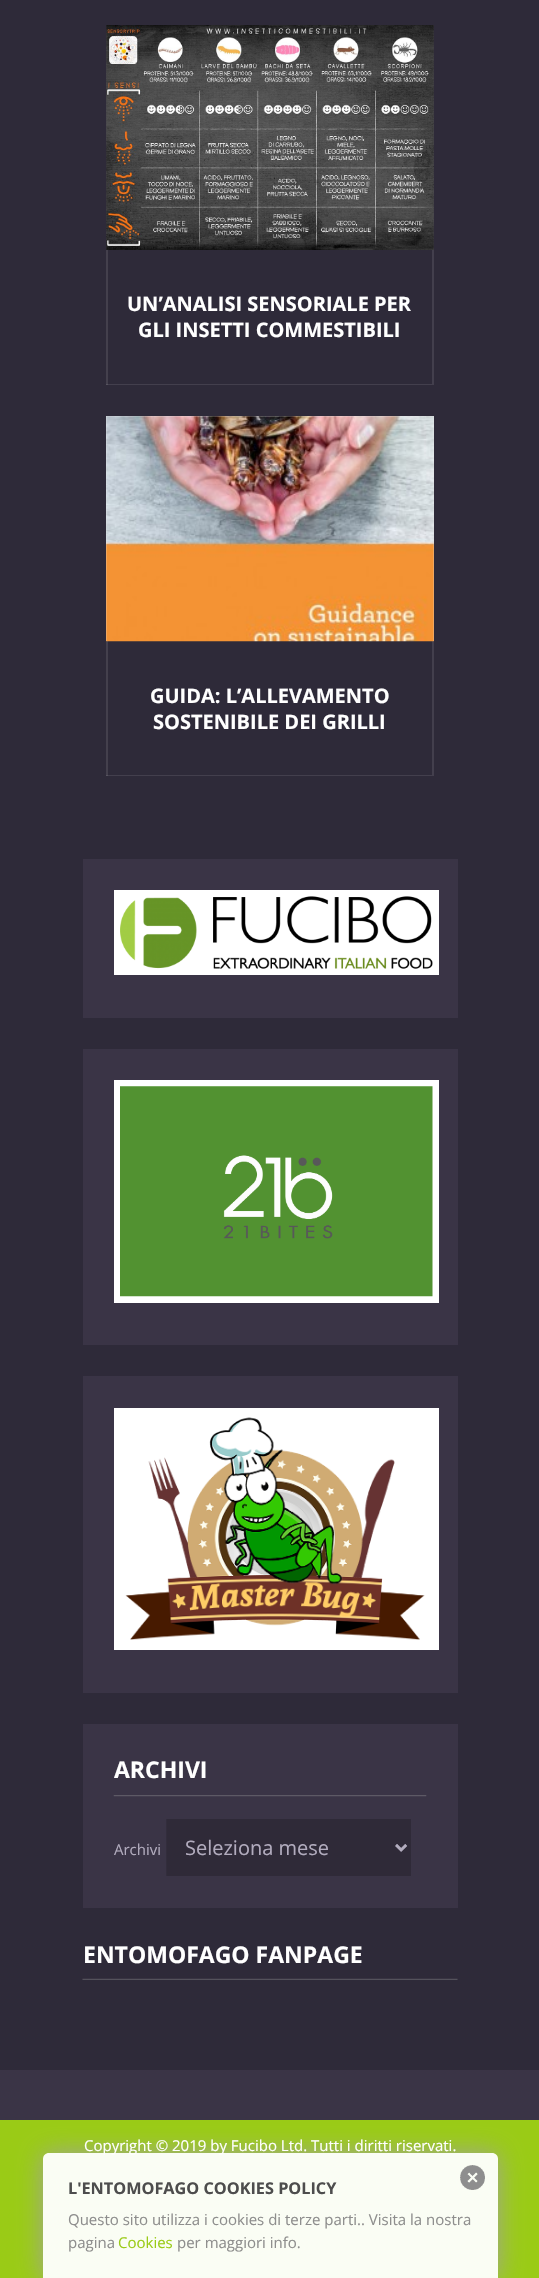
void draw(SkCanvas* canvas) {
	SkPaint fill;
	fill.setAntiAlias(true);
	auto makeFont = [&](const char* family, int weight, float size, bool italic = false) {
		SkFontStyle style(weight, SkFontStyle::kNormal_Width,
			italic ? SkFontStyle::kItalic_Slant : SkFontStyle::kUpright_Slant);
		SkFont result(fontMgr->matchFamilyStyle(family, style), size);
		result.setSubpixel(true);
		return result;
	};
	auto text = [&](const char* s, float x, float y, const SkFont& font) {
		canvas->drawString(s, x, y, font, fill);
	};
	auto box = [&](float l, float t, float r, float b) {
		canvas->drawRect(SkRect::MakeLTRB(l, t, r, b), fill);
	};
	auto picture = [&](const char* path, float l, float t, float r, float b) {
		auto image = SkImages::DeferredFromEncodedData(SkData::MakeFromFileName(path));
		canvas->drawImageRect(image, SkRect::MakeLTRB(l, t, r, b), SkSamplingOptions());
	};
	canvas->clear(0xFF2E2A39);
	canvas->save();
	canvas->clipRect(SkRect::MakeLTRB(106, 25, 434, 385));
	fill.setColor(0xFF433F4D);
	canvas->drawPath(SkPathBuilder(SkPathFillType::kEvenOdd).moveTo(-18, -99).lineTo(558, -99).lineTo(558, 509).lineTo(-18, 509).close().moveTo(105, 24).lineTo(432, 24).lineTo(432, 384).lineTo(105, 384).close().detach(), fill);
	fill.setColor(0x1AFFFFFF);
	canvas->drawPath(SkPathBuilder(SkPathFillType::kEvenOdd).moveTo(-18, -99).lineTo(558, -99).lineTo(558, 509).lineTo(-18, 509).close().moveTo(108, 26).lineTo(435, 26).lineTo(435, 386).lineTo(108, 386).close().detach(), fill);
	canvas->restore();
	picture("image0.png", 106, 25, 434, 250);
	canvas->save();
	canvas->clipRect(SkRect::MakeLTRB(106, 416, 434, 776));
	fill.setColor(0xFF433F4D);
	canvas->drawPath(SkPathBuilder(SkPathFillType::kEvenOdd).moveTo(-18, 292).lineTo(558, 292).lineTo(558, 900).lineTo(-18, 900).close().moveTo(105, 415).lineTo(432, 415).lineTo(432, 775).lineTo(105, 775).close().detach(), fill);
	fill.setColor(0x1AFFFFFF);
	canvas->drawPath(SkPathBuilder(SkPathFillType::kEvenOdd).moveTo(-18, 292).lineTo(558, 292).lineTo(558, 900).lineTo(-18, 900).close().moveTo(108, 418).lineTo(435, 418).lineTo(435, 778).lineTo(108, 778).close().detach(), fill);
	canvas->restore();
	fill.setColor(0xFFE5E5E5);
	box(106, 416, 434, 641);
	picture("image1.png", 106, 416, 434, 642);
	fill.setColor(0xFF3A3446);
	box(83, 859, 458, 1018);
	fill.setColor(0xFFFFFFFF);
	box(114, 890, 439, 975);
	picture("image2.png", 120, 896, 433, 969);
	fill.setColor(0xFF3A3446);
	box(83, 1049, 458, 1345);
	fill.setColor(0xFFFFFFFF);
	box(114, 1080, 439, 1303);
	picture("image3.png", 120, 1086, 433, 1297);
	fill.setColor(0xFF3A3446);
	box(83, 1376, 458, 1693);
	fill.setColor(0xFFFFFFFF);
	box(114, 1408, 439, 1650);
	picture("image4.png", 125, 1417, 425, 1640);
	fill.setColor(0xFF3A3446);
	box(83, 1724, 458, 1908);
	picture("image5.png", 113, 1795, 427, 1797);
	picture("image6.png", 166, 1819, 411, 1876);
	fill.setStyle(SkPaint::kStroke_Style);
	fill.setStrokeWidth(2.5f);
	fill.setColor(0xFFB2ACBE);
	canvas->drawPath(SkPathBuilder().moveTo(396, 1845).lineTo(401, 1850).lineTo(406, 1845).detach(), fill);
	picture("image7.png", 82, 1978, 458, 1980);
	fill.setStyle(SkPaint::kFill_Style);
	fill.setColor(0xFF3A3446);
	box(0, 2070, 539, 2120);
	fill.setColor(0xFF9ACB16);
	box(0, 2120, 539, 2278);
	canvas->save();
	canvas->clipPath(SkPathBuilder(SkPathFillType::kEvenOdd).moveTo(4, 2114).lineTo(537, 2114).lineTo(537, 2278).lineTo(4, 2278).close().moveTo(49, 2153).lineTo(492, 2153).cubicTo(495.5f, 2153, 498, 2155.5f, 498, 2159).lineTo(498, 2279).lineTo(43, 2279).lineTo(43, 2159).cubicTo(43, 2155.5f, 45.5f, 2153, 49, 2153).close().detach(), true);
	fill.setColor(0xF2A1A1A1);
	fill.setMaskFilter(SkMaskFilter::MakeBlur(kNormal_SkBlurStyle, 12.5f));
	canvas->drawRoundRect(SkRect::MakeLTRB(43, 2153, 498, 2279), 6, 6, fill);
	fill.setMaskFilter(nullptr);
	canvas->restore();
	auto font1 = makeFont("Open Sans", 700, 20);
	fill.setColor(0xFFFFFFFF);
	text("UN’ANALISI SENSORIALE PER", 127, 311, font1);
	text("GLI INSETTI COMMESTIBILI", 138, 337, font1);
	text("GUIDA: L’ALLEVAMENTO", 150, 703, font1);
	text("SOSTENIBILE DEI GRILLI", 153, 729, font1);
	auto font2 = makeFont("Open Sans", 700, 23);
	text("ARCHIVI", 114, 1778, font2);
	auto font3 = makeFont("Open Sans", 400, 15);
	fill.setColor(0xFFB2ACBE);
	text("Archivi", 114, 1855, font3);
	auto font4 = makeFont("Open Sans", 400, 20);
	text("Seleziona mese", 185, 1855, font4);
	fill.setColor(0xFFFFFFFF);
	text("ENTOMOFAGO FANPAGE", 83, 1963, font2);
	text("Copyright © 2019 by Fucibo Ltd. Tutti i diritti riservati.", 84, 2151, font3);
	fill.setColor(0xF2FFFFFF);
	canvas->drawPath(SkPathBuilder().moveTo(49, 2153).lineTo(492, 2153).cubicTo(495.5f, 2153, 498, 2155.5f, 498, 2159).lineTo(498, 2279).lineTo(43, 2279).lineTo(43, 2159).cubicTo(43, 2155.5f, 45.5f, 2153, 49, 2153).close().detach(), fill);
	auto font5 = makeFont("Open Sans", 700, 16.25f);
	fill.setColor(0xFF4D4D4D);
	text("L'ENTOMOFAGO COOKIES POLICY", 68, 2194, font5);
	picture("image8.png", 460, 2165, 485, 2190);
	fill.setColor(0xFF8E8E8D);
	text("Questo sito utilizza i cookies di terze parti.. Visita la nostra", 68, 2225, font3);
	text("pagina", 68, 2248, font3);
	fill.setColor(0xFF9ACB16);
	text("Cookies", 118, 2248, font3);
	fill.setColor(0xFF8E8E8D);
	text("per maggiori info.", 177, 2248, font3);
}
